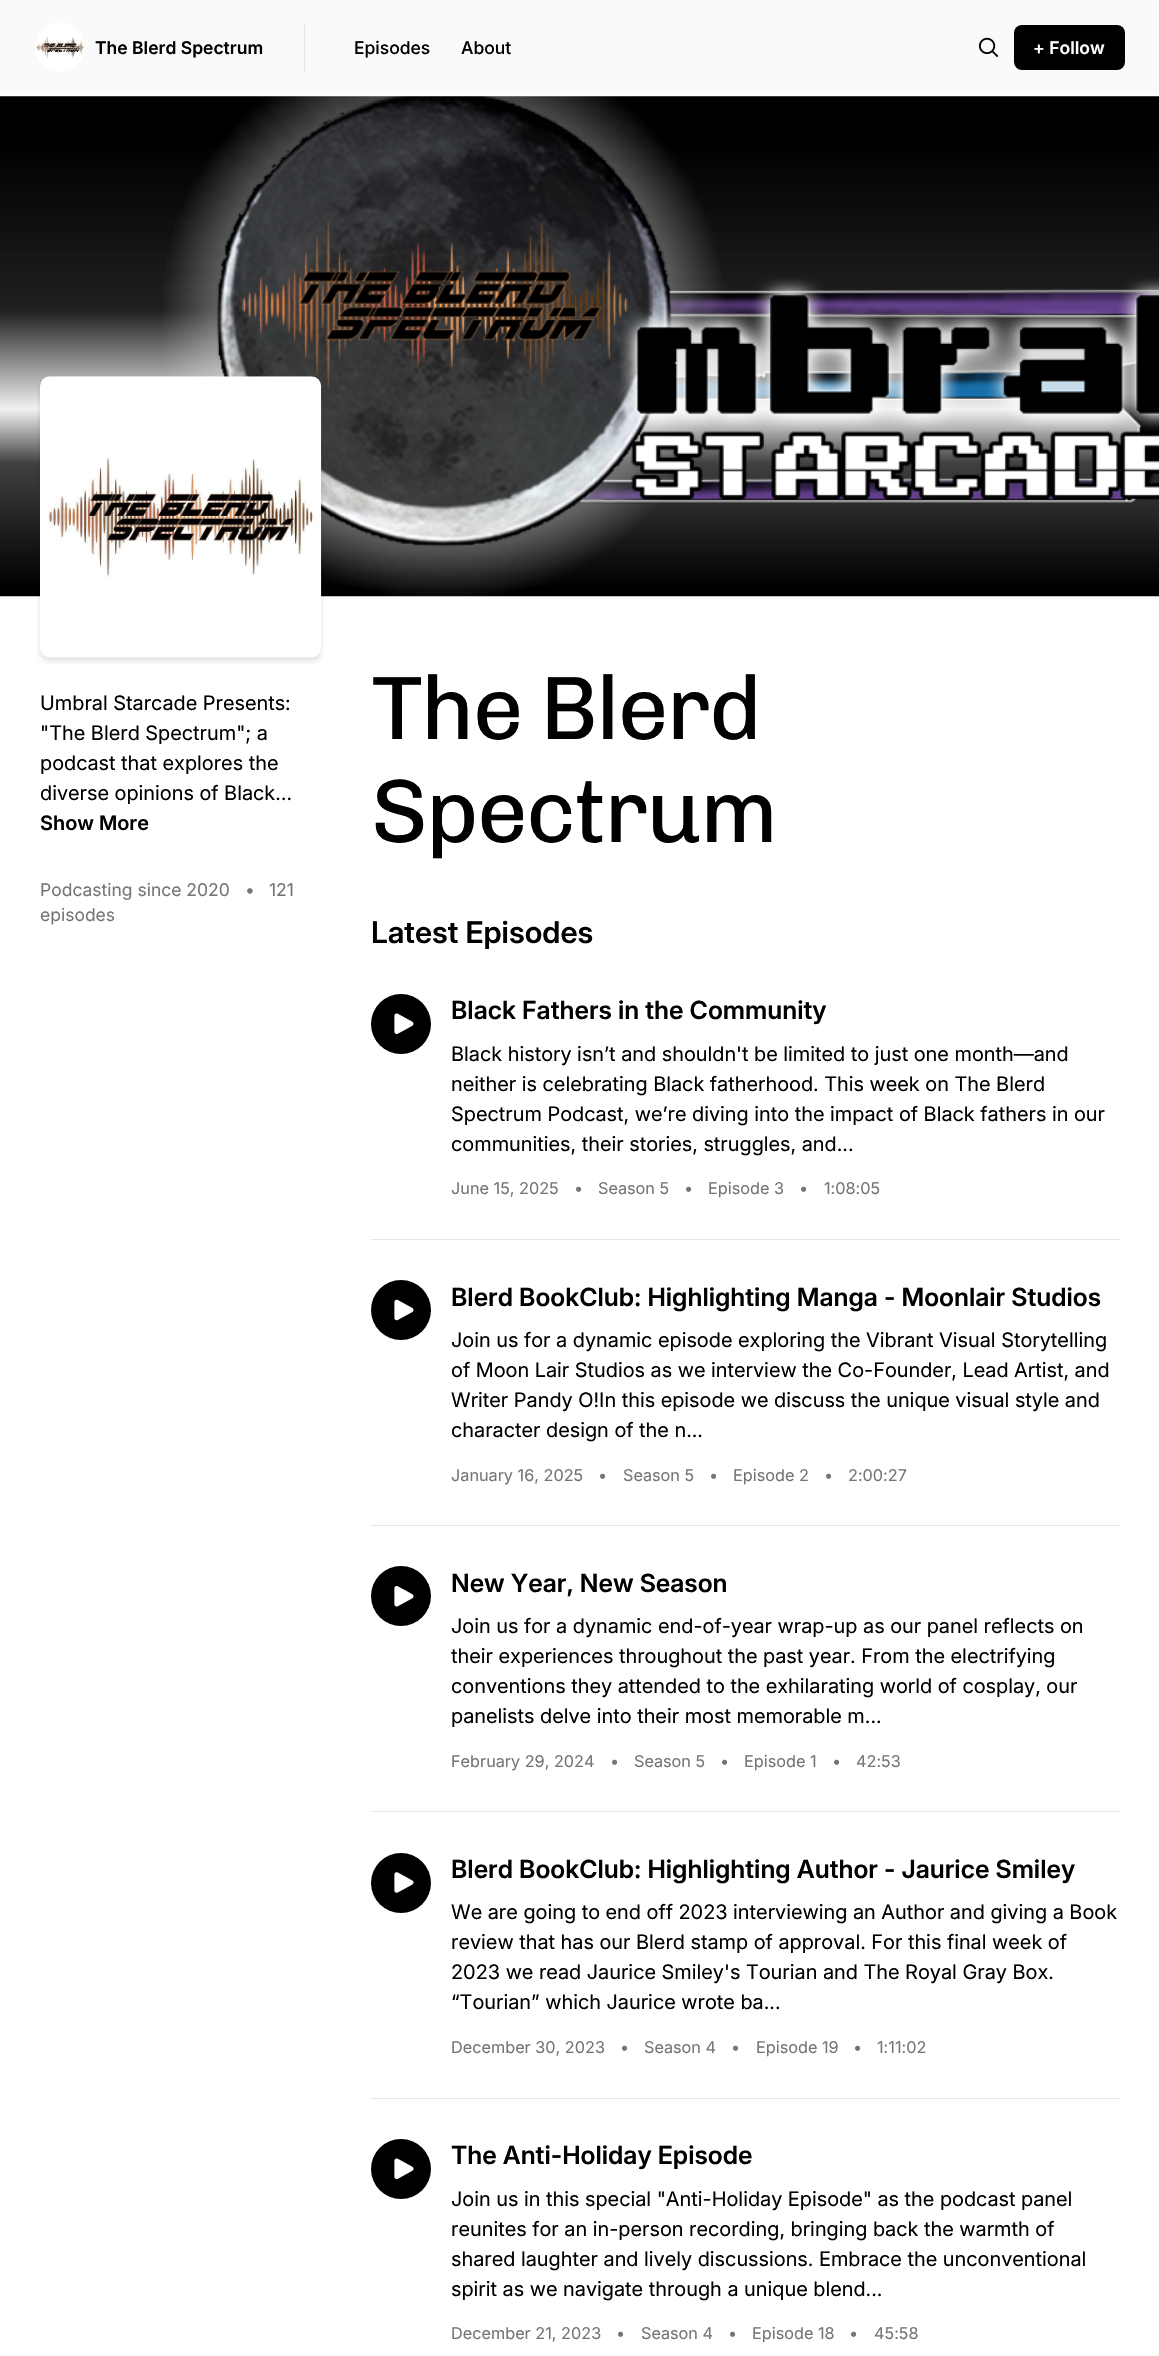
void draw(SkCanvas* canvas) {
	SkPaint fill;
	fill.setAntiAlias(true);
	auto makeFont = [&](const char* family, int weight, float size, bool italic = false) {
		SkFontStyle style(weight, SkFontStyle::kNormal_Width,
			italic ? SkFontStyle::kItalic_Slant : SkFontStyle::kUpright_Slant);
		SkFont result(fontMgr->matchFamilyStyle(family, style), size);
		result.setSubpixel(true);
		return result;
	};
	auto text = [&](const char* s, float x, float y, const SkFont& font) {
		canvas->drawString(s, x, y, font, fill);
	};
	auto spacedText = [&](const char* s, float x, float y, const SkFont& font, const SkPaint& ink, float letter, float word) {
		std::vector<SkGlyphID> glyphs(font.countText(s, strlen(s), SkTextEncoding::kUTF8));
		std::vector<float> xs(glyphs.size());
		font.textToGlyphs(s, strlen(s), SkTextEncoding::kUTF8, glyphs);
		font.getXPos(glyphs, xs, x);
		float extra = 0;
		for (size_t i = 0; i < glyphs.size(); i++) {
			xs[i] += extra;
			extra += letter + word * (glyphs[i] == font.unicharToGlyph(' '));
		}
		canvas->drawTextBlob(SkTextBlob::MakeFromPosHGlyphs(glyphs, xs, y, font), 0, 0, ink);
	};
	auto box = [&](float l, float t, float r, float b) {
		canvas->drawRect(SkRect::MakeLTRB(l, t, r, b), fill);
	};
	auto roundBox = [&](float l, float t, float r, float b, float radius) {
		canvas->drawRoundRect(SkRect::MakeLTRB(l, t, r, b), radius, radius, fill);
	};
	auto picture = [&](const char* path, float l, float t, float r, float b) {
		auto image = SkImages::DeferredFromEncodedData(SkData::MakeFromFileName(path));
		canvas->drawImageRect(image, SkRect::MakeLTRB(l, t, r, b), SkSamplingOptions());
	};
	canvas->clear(0xFFFFFFFF);
	fill.setColor(0xFFFAFAFA);
	box(0, 0, 1159, 95);
	fill.setColor(0xFFE4E5E6);
	box(304, 23, 305, 73);
	picture("image0.png", 35, 23, 84, 72);
	picture("image1.png", 979, 37, 999, 58);
	fill.setColor(0xFF000000);
	roundBox(1014, 25, 1125, 70, 8);
	picture("image2.png", 0, 96, 1159, 597);
	picture("image3.png", 37, 376, 324, 664);
	canvas->drawCircle(401, 1024, 30, fill);
	picture("image4.png", 394, 1013, 414, 1034);
	fill.setColor(0xFFE4E5E6);
	box(371, 1239, 1120, 1240);
	fill.setColor(0xFF000000);
	canvas->drawCircle(401, 1310, 30, fill);
	picture("image5.png", 394, 1299, 414, 1321);
	fill.setColor(0xFFE4E5E6);
	box(371, 1525, 1120, 1526);
	fill.setColor(0xFF000000);
	canvas->drawCircle(401, 1596, 30, fill);
	picture("image6.png", 394, 1586, 414, 1607);
	fill.setColor(0xFFE4E5E6);
	box(371, 1811, 1120, 1812);
	fill.setColor(0xFF000000);
	canvas->drawCircle(401, 1883, 30, fill);
	picture("image7.png", 394, 1872, 414, 1893);
	fill.setColor(0xFFE4E5E6);
	box(371, 2098, 1120, 2099);
	fill.setColor(0xFF000000);
	canvas->drawCircle(401, 2169, 30, fill);
	picture("image4.png", 394, 2158, 414, 2179);
	auto font1 = makeFont("Inter", 600, 17.5f);
	text("The Blerd Spectrum", 95, 54, font1);
	auto font2 = makeFont("Inter", 500, 17.5f);
	text("Episodes", 354, 54, font2);
	text("About", 461, 54, font2);
	fill.setColor(0xFFFFFFFF);
	text("+ Follow", 1033, 54, font1);
	auto font3 = makeFont("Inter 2", 400, 20);
	fill.setColor(0xFF000000);
	text("Umbral Starcade Presents:", 40, 710, font3);
	text("\"The Blerd Spectrum\"; a", 40, 740, font3);
	text("podcast that explores the", 40, 770, font3);
	text("diverse opinions of Black…", 40, 800, font3);
	auto font4 = makeFont("Inter 2", 600, 20);
	text("Show More", 40, 830, font4);
	auto font5 = makeFont("Inter", 400, 17.5f);
	fill.setColor(0xFF747576);
	text("Podcasting since 2020", 40, 896, font5);
	text("•", 245, 896, font5);
	text("121", 269, 896, font5);
	text("episodes", 40, 921, font5);
	auto font6 = makeFont("Chivo", 500, 90);
	fill.setColor(0xFF000000);
	spacedText("The Blerd", 371, 739, font6, fill, -2.25f, 0);
	spacedText("Spectrum", 371, 842, font6, fill, -2.25f, 0);
	auto font7 = makeFont("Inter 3", 600, 30);
	text("Latest Episodes", 371, 943, font7);
	auto font8 = makeFont("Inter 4", 600, 25);
	text("Black Fathers in the Community", 451, 1019, font8);
	text("Black history isn’t and shouldn't be limited to just one month—and", 451, 1061, font3);
	text("neither is celebrating Black fatherhood. This week on The Blerd", 451, 1091, font3);
	text("Spectrum Podcast, we’re diving into the impact of Black fathers in our", 451, 1121, font3);
	text("communities, their stories, struggles, and...", 451, 1151, font3);
	auto font9 = makeFont("Inter", 400, 16.25f);
	fill.setColor(0xFF747576);
	text("June 15, 2025", 451, 1194, font9);
	text("•", 574, 1194, font9);
	text("Season 5", 598, 1194, font9);
	text("•", 684, 1194, font9);
	text("Episode 3", 708, 1194, font9);
	text("•", 799, 1194, font9);
	text("1:08:05", 824, 1194, font9);
	fill.setColor(0xFF000000);
	text("Blerd BookClub: Highlighting Manga - Moonlair Studios", 451, 1306, font8);
	text("Join us for a dynamic episode exploring the Vibrant Visual Storytelling", 451, 1347, font3);
	text("of Moon Lair Studios as we interview the Co-Founder, Lead Artist, and", 451, 1377, font3);
	text("Writer Pandy O!In this episode we discuss the unique visual style and", 451, 1407, font3);
	text("character design of the n...", 451, 1437, font3);
	fill.setColor(0xFF747576);
	text("January 16, 2025", 451, 1481, font9);
	text("•", 598, 1481, font9);
	text("Season 5", 623, 1481, font9);
	text("•", 709, 1481, font9);
	text("Episode 2", 733, 1481, font9);
	text("•", 824, 1481, font9);
	text("2:00:27", 848, 1481, font9);
	fill.setColor(0xFF000000);
	text("New Year, New Season", 451, 1592, font8);
	text("Join us for a dynamic end-of-year wrap-up as our panel reflects on", 451, 1633, font3);
	text("their experiences throughout the past year. From the electrifying", 451, 1663, font3);
	text("conventions they attended to the exhilarating world of cosplay, our", 451, 1693, font3);
	text("panelists delve into their most memorable m...", 451, 1723, font3);
	fill.setColor(0xFF747576);
	text("February 29, 2024", 451, 1767, font9);
	text("•", 610, 1767, font9);
	text("Season 5", 634, 1767, font9);
	text("•", 720, 1767, font9);
	text("Episode 1", 744, 1767, font9);
	text("•", 832, 1767, font9);
	text("42:53", 856, 1767, font9);
	fill.setColor(0xFF000000);
	text("Blerd BookClub: Highlighting Author - Jaurice Smiley", 451, 1878, font8);
	text("We are going to end off 2023 interviewing an Author and giving a Book", 451, 1919, font3);
	text("review that has our Blerd stamp of approval. For this final week of", 451, 1949, font3);
	text("2023 we read Jaurice Smiley's Tourian and The Royal Gray Box.", 451, 1979, font3);
	text("“Tourian” which Jaurice wrote ba...", 451, 2009, font3);
	fill.setColor(0xFF747576);
	text("December 30, 2023", 451, 2053, font9);
	text("•", 620, 2053, font9);
	text("Season 4", 644, 2053, font9);
	text("•", 731, 2053, font9);
	text("Episode 19", 756, 2053, font9);
	text("•", 853, 2053, font9);
	text("1:11:02", 877, 2053, font9);
	fill.setColor(0xFF000000);
	text("The Anti-Holiday Episode", 451, 2164, font8);
	text("Join us in this special \"Anti-Holiday Episode\" as the podcast panel", 451, 2206, font3);
	text("reunites for an in-person recording, bringing back the warmth of", 451, 2236, font3);
	text("shared laughter and lively discussions. Embrace the unconventional", 451, 2266, font3);
	text("spirit as we navigate through a unique blend...", 451, 2296, font3);
	fill.setColor(0xFF747576);
	text("December 21, 2023", 451, 2339, font9);
	text("•", 616, 2339, font9);
	text("Season 4", 641, 2339, font9);
	text("•", 728, 2339, font9);
	text("Episode 18", 752, 2339, font9);
	text("•", 849, 2339, font9);
	text("45:58", 874, 2339, font9);
}
